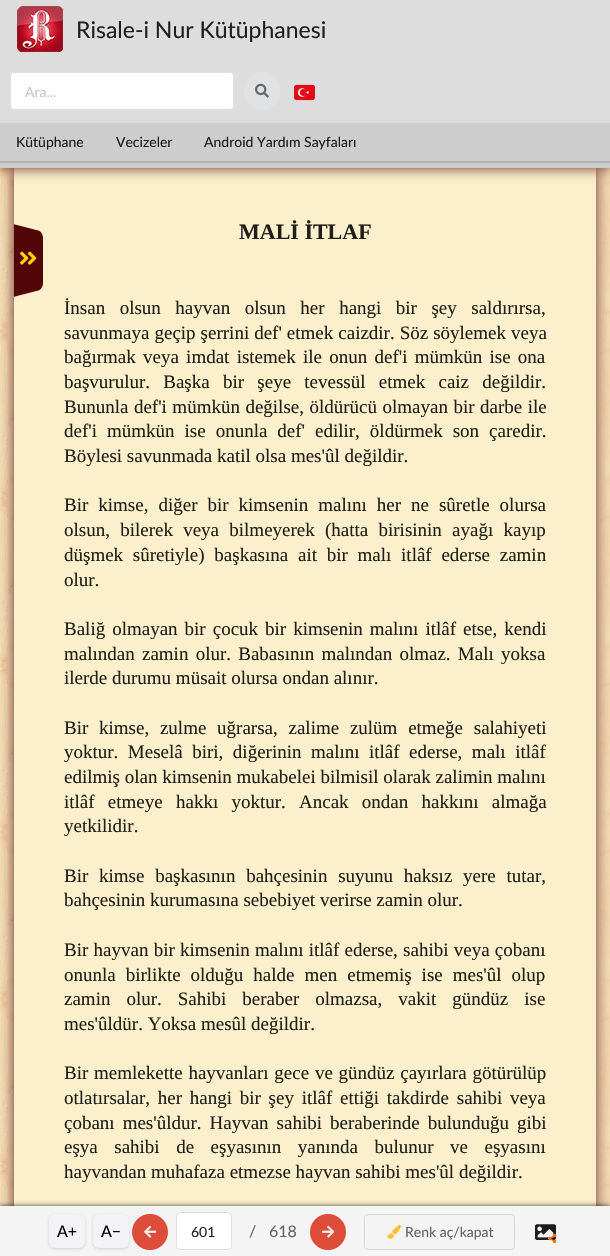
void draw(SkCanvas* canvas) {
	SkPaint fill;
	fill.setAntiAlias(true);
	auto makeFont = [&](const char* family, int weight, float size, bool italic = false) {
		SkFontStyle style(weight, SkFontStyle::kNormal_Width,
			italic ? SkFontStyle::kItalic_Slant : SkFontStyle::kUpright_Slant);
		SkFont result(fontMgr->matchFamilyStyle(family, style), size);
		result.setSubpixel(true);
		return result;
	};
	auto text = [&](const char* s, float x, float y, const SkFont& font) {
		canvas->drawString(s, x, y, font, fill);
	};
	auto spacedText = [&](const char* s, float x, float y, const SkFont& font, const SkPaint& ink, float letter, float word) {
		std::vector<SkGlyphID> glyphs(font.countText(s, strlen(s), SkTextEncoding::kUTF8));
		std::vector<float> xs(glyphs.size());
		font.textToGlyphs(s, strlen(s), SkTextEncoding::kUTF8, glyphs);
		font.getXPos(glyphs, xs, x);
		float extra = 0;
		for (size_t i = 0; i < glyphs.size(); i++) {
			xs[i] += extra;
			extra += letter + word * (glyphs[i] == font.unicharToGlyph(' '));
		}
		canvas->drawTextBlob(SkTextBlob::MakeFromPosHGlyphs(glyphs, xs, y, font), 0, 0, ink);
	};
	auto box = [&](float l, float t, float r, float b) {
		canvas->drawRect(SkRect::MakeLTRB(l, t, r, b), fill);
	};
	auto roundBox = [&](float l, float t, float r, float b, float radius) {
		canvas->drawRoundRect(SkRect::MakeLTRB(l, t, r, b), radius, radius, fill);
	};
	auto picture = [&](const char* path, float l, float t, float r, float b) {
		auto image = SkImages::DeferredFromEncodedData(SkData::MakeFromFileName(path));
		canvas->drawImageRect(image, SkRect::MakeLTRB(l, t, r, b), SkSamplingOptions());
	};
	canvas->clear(0xFFFFFFFF);
	picture("image0.png", 0, 168, 610, 1206);
	fill.setColor(0xD64A0303);
	fill.setMaskFilter(SkMaskFilter::MakeBlur(kNormal_SkBlurStyle, 6.5f));
	canvas->drawRect(SkRect::MakeLTRB(14, 168, 596, 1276), fill);
	fill.setMaskFilter(nullptr);
	fill.setColor(0xFFFBF0CB);
	box(14, 168, 596, 1206);
	fill.setColor(0xD64A0303);
	fill.setMaskFilter(SkMaskFilter::MakeBlur(kNormal_SkBlurStyle, 6.5f));
	canvas->drawRect(SkRect::MakeLTRB(0, -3, 610, 168), fill);
	fill.setMaskFilter(nullptr);
	fill.setColor(0xFFDDDDDD);
	box(0, 0, 610, 123);
	picture("image1.png", 17, 6, 63, 52);
	fill.setColor(0xFFFFFFFF);
	roundBox(10, 72, 234, 110, 4);
	fill.setStyle(SkPaint::kStroke_Style);
	fill.setStrokeWidth(1);
	fill.setColor(0x26222426);
	canvas->drawRoundRect(SkRect::MakeLTRB(10.5f, 72.5f, 233.5f, 109.5f), 3.5f, 3.5f, fill);
	fill.setStyle(SkPaint::kFill_Style);
	fill.setColor(0xFFE0E1E2);
	roundBox(244, 72, 280, 110, 18);
	picture("image2.png", 255, 83, 269, 98);
	picture("image3.png", 294, 84, 315, 101);
	fill.setColor(0xFFCDCDCD);
	box(0, 123, 610, 168);
	fill.setColor(0xFFB3B4B4);
	box(0, 161, 610, 163);
	picture("image4.png", 14, 224, 43, 297);
	picture("image5.png", 20, 251, 37, 265);
	fill.setColor(0xBF000000);
	fill.setMaskFilter(SkMaskFilter::MakeBlur(kNormal_SkBlurStyle, 2.5f));
	canvas->drawRect(SkRect::MakeLTRB(0, 1206, 610, 1256), fill);
	fill.setMaskFilter(nullptr);
	fill.setColor(0xFFF4F4F4);
	box(0, 1206, 610, 1256);
	fill.setColor(0x26000000);
	fill.setMaskFilter(SkMaskFilter::MakeBlur(kNormal_SkBlurStyle, 1.5f));
	canvas->drawRoundRect(SkRect::MakeLTRB(49, 1215, 85, 1249), 6, 6, fill);
	fill.setMaskFilter(nullptr);
	fill.setColor(0xFFF3F3F5);
	roundBox(49, 1214, 85, 1248, 6);
	fill.setColor(0x26000000);
	fill.setMaskFilter(SkMaskFilter::MakeBlur(kNormal_SkBlurStyle, 1.5f));
	canvas->drawRoundRect(SkRect::MakeLTRB(93, 1215, 129, 1249), 6, 6, fill);
	fill.setMaskFilter(nullptr);
	fill.setColor(0xFFF3F3F5);
	roundBox(93, 1214, 129, 1248, 6);
	fill.setColor(0xFFDD4B39);
	canvas->drawCircle(150, 1232, 18, fill);
	picture("image6.png", 144, 1225, 157, 1238);
	fill.setColor(0xFFFFFFFF);
	roundBox(176, 1212, 232, 1250, 4);
	fill.setStyle(SkPaint::kStroke_Style);
	fill.setColor(0x26222426);
	canvas->drawRoundRect(SkRect::MakeLTRB(176.5f, 1212.5f, 231.5f, 1249.5f), 3.5f, 3.5f, fill);
	fill.setStyle(SkPaint::kFill_Style);
	fill.setColor(0xFFDD4B39);
	canvas->drawCircle(328, 1232, 18, fill);
	picture("image7.png", 322, 1225, 335, 1238);
	fill.setStyle(SkPaint::kStroke_Style);
	fill.setColor(0xFFD5D5D5);
	canvas->drawRoundRect(SkRect::MakeLTRB(364.5f, 1214.5f, 514.5f, 1249.5f), 3.5f, 3.5f, fill);
	picture("image8.png", 387, 1224, 401, 1239);
	picture("image9.png", 535, 1224, 556, 1240);
	picture("image10.png", 548, 1233, 557, 1244);
	auto font1 = makeFont("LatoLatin", 400, 23);
	fill.setStyle(SkPaint::kFill_Style);
	fill.setColor(0xFF211F1A);
	text("Risale-i Nur Kütüphanesi", 76, 38, font1);
	auto font2 = makeFont("LatoLatin", 400, 14);
	fill.setColor(0xFFC7C7C7);
	text("Ara...", 25, 97, font2);
	fill.setColor(0xFF1B1B1B);
	text("Kütüphane", 16, 147, font2);
	text("Vecizeler", 116, 147, font2);
	text("Android Yardım Sayfaları", 204, 147, font2);
	auto font3 = makeFont("Liberation Serif", 700, 22);
	fill.setColor(0xFF211F1A);
	text("MALİ İTLAF", 239, 239, font3);
	auto font4 = makeFont("Liberation Serif", 400, 19);
	spacedText("İnsan olsun hayvan olsun her hangi bir şey saldırırsa,", 64, 314, font4, fill, 0, 9.75f);
	spacedText("savunmaya geçip şerrini def' etmek caizdir. Söz söylemek veya", 64, 339, font4, fill, 0, 0.25f);
	spacedText("bağırmak veya imdat istemek ile onun def'i mümkün ise ona", 64, 363, font4, fill, 0, 2.5f);
	spacedText("başvurulur. Başka bir şeye tevessül etmek caiz değildir.", 64, 388, font4, fill, 0, 8.5f);
	spacedText("Bununla def'i mümkün değilse, öldürücü olmayan bir darbe ile", 64, 413, font4, fill, 0, 0.75f);
	spacedText("def'i mümkün ise onunla def' edilir, öldürmek son çaredir.", 64, 437, font4, fill, 0, 5.25f);
	text("Böylesi savunmada katil olsa mes'ûl değildir.", 64, 462, font4);
	spacedText("Bir kimse, diğer bir kimsenin malını her ne sûretle olursa", 64, 511, font4, fill, 0, 5.25f);
	spacedText("olsun, bilerek veya bilmeyerek (hatta birisinin ayağı kayıp", 64, 536, font4, fill, 0, 5.5f);
	spacedText("düşmek sûretiyle) başkasına ait bir malı itlâf ederse zamin", 64, 561, font4, fill, 0, 5);
	text("olur.", 64, 586, font4);
	spacedText("Baliğ olmayan bir çocuk bir kimsenin malını itlâf etse, kendi", 64, 635, font4, fill, 0, 2.25f);
	spacedText("malından zamin olur. Babasının malından olmaz. Malı yoksa", 64, 660, font4, fill, 0, 2.5f);
	text("ilerde durumu müsait olursa ondan alınır.", 64, 684, font4);
	spacedText("Bir kimse, zulme uğrarsa, zalime zulüm etmeğe salahiyeti", 64, 734, font4, fill, 0, 6);
	spacedText("yoktur. Meselâ biri, diğerinin malını itlâf ederse, malı itlâf", 64, 758, font4, fill, 0, 4.75f);
	text("edilmiş olan kimsenin mukabelei bilmisil olarak zalimin malını", 64, 783, font4);
	spacedText("itlâf etmeye hakkı yoktur. Ancak ondan hakkını almağa", 64, 808, font4, fill, 0, 8.5f);
	text("yetkilidir.", 64, 832, font4);
	spacedText("Bir kimse başkasının bahçesinin suyunu haksız yere tutar,", 64, 882, font4, fill, 0, 6);
	text("bahçesinin kurumasına sebebiyet verirse zamin olur.", 64, 906, font4);
	spacedText("Bir hayvan bir kimsenin malını itlâf ederse, sahibi veya çobanı", 64, 956, font4, fill, 0, 0.5f);
	spacedText("onunla birlikte olduğu halde men etmemiş ise mes'ûl olup", 64, 981, font4, fill, 0, 5.25f);
	spacedText("zamin olur. Sahibi beraber olmazsa, vakit gündüz ise", 64, 1005, font4, fill, 0, 11.25f);
	text("mes'ûldür. Yoksa mesûl değildir.", 64, 1030, font4);
	spacedText("Bir memlekette hayvanları gece ve gündüz çayırlara götürülüp", 64, 1079, font4, fill, 0, 1);
	spacedText("otlatırsalar, her hangi bir şey itlâf ettiği takdirde sahibi veya", 64, 1104, font4, fill, 0, 3);
	spacedText("çobanı mes'ûldur. Hayvan sahibi beraberinde bulunduğu gibi", 64, 1129, font4, fill, 0, 3.25f);
	spacedText("eşya sahibi de eşyasının yanında bulunur ve eşyasını", 64, 1153, font4, fill, 0, 11.75f);
	text("hayvandan muhafaza etmezse hayvan sahibi mes'ûl değildir.", 64, 1178, font4);
	auto font5 = makeFont("LatoLatin", 400, 16);
	fill.setColor(0xFF000000);
	text("A+", 57, 1237, font5);
	text("A−", 101, 1237, font5);
	fill.setColor(0xFF212121);
	text("601", 191, 1237, font2);
	fill.setColor(0xFF626262);
	text("/", 249, 1237, font5);
	text("618", 269, 1237, font5);
	text("Renk aç/kapat", 405, 1237, font2);
}
